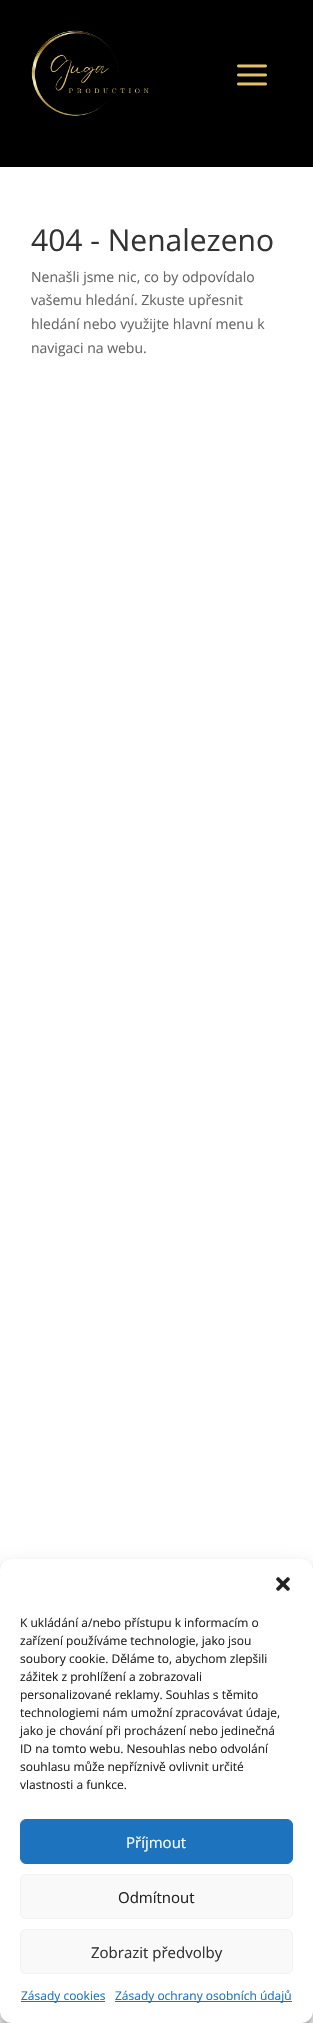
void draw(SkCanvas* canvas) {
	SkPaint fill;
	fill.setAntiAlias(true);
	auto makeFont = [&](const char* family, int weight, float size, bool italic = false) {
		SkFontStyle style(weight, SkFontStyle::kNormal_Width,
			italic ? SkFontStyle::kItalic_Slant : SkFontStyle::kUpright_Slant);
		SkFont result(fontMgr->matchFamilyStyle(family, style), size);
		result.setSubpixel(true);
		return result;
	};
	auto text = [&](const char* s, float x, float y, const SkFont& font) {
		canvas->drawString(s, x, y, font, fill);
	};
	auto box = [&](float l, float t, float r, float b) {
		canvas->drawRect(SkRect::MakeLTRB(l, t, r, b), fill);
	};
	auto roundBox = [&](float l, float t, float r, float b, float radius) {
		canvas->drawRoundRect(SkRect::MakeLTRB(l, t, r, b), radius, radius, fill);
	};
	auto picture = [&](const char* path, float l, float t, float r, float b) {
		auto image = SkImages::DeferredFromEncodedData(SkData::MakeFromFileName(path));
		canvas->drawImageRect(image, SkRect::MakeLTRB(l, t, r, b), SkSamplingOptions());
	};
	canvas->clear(0xFFFFFFFF);
	fill.setColor(0xFF000000);
	box(0, 0, 313, 167);
	picture("image0.png", 31, 30, 149, 116);
	picture("image1.png", 237, 64, 267, 86);
	fill.setColor(0x3B000000);
	fill.setMaskFilter(SkMaskFilter::MakeBlur(kNormal_SkBlurStyle, 3));
	canvas->drawRoundRect(SkRect::MakeLTRB(0, 1565, 313, 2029), 12, 12, fill);
	fill.setMaskFilter(nullptr);
	fill.setColor(0x30000000);
	fill.setMaskFilter(SkMaskFilter::MakeBlur(kNormal_SkBlurStyle, 10));
	canvas->drawRoundRect(SkRect::MakeLTRB(0, 1569, 313, 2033), 12, 12, fill);
	fill.setMaskFilter(nullptr);
	fill.setColor(0xFFFFFFFF);
	roundBox(0, 1559, 313, 2023, 12);
	picture("image2.png", 276, 1577, 290, 1591);
	fill.setColor(0xFF1E73BE);
	canvas->drawRoundRect(SkRect::MakeLTRB(20.5f, 1819.5f, 292.5f, 1863.5f), 5.5f, 5.5f, fill);
	fill.setStyle(SkPaint::kStroke_Style);
	fill.setStrokeWidth(1);
	canvas->drawRoundRect(SkRect::MakeLTRB(20.5f, 1819.5f, 292.5f, 1863.5f), 5.5f, 5.5f, fill);
	fill.setStyle(SkPaint::kFill_Style);
	fill.setColor(0xFFF9F9F9);
	canvas->drawRoundRect(SkRect::MakeLTRB(20.5f, 1874.5f, 292.5f, 1918.5f), 5.5f, 5.5f, fill);
	fill.setStyle(SkPaint::kStroke_Style);
	fill.setColor(0xFFF2F2F2);
	canvas->drawRoundRect(SkRect::MakeLTRB(20.5f, 1874.5f, 292.5f, 1918.5f), 5.5f, 5.5f, fill);
	fill.setStyle(SkPaint::kFill_Style);
	fill.setColor(0xFFF9F9F9);
	canvas->drawRoundRect(SkRect::MakeLTRB(20.5f, 1929.5f, 292.5f, 1973.5f), 5.5f, 5.5f, fill);
	fill.setStyle(SkPaint::kStroke_Style);
	fill.setColor(0xFFF2F2F2);
	canvas->drawRoundRect(SkRect::MakeLTRB(20.5f, 1929.5f, 292.5f, 1973.5f), 5.5f, 5.5f, fill);
	fill.setStyle(SkPaint::kFill_Style);
	fill.setColor(0xFF1E73BE);
	box(21, 2001, 105, 2002);
	box(115, 2001, 292, 2002);
	auto font1 = makeFont("Open Sans", 400, 30);
	fill.setColor(0xFF333333);
	text("404 - Nenalezeno", 31, 251, font1);
	auto font2 = makeFont("Open Sans", 400, 14);
	fill.setColor(0xFF666666);
	text("Nenašli jsme nic, co by odpovídalo", 31, 282, font2);
	text("vašemu hledání. Zkuste upřesnit", 31, 305, font2);
	text("hledání nebo využijte hlavní menu k", 31, 329, font2);
	text("navigaci na webu.", 31, 353, font2);
	auto font3 = makeFont("Open Sans", 400, 12);
	fill.setColor(0xFF222222);
	text("K ukládání a/nebo přístupu k informacím o", 20, 1627, font3);
	text("zařízení používáme technologie, jako jsou", 20, 1645, font3);
	text("soubory cookie. Děláme to, abychom zlepšili", 20, 1663, font3);
	text("zážitek z prohlížení a zobrazovali", 20, 1681, font3);
	text("personalizované reklamy. Souhlas s těmito", 20, 1699, font3);
	text("technologiemi nám umožní zpracovávat údaje,", 20, 1717, font3);
	text("jako je chování při procházení nebo jedinečná", 20, 1735, font3);
	text("ID na tomto webu. Nesouhlas nebo odvolání", 20, 1753, font3);
	text("souhlasu může nepříznivě ovlivnit určité", 20, 1771, font3);
	text("vlastnosti a funkce.", 20, 1789, font3);
	auto font4 = makeFont("Open Sans", 400, 15);
	fill.setColor(0xFFFFFFFF);
	text("Příjmout", 126, 1848, font4);
	fill.setColor(0xFF222222);
	text("Odmítnout", 118, 1903, font4);
	fill.setColor(0xFF333333);
	text("Zobrazit předvolby", 91, 1958, font4);
	fill.setColor(0xFF1E73BE);
	text("Zásady cookies", 21, 2000, font3);
	text("Zásady ochrany osobních údajů", 115, 2000, font3);
}
